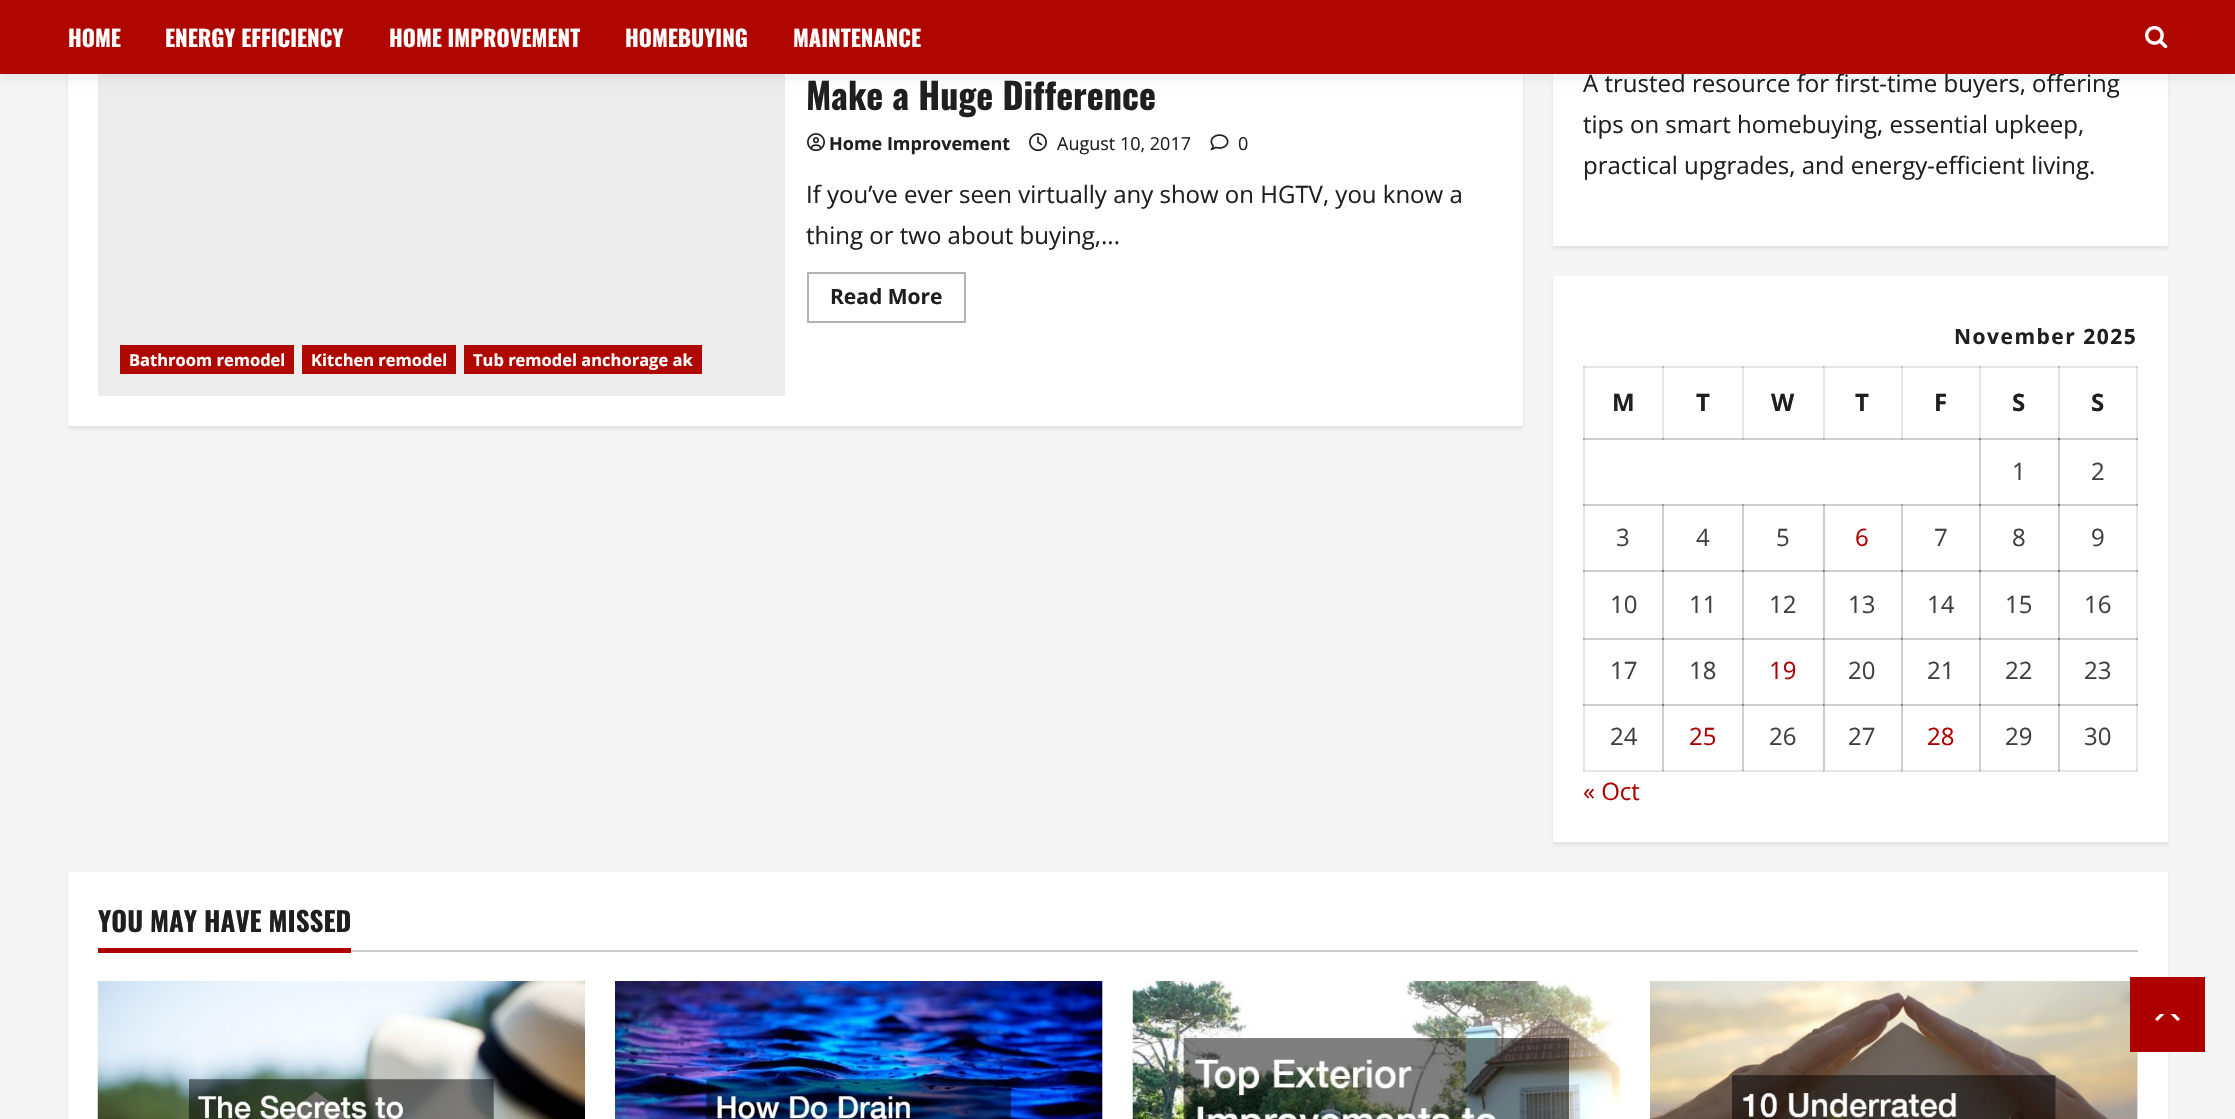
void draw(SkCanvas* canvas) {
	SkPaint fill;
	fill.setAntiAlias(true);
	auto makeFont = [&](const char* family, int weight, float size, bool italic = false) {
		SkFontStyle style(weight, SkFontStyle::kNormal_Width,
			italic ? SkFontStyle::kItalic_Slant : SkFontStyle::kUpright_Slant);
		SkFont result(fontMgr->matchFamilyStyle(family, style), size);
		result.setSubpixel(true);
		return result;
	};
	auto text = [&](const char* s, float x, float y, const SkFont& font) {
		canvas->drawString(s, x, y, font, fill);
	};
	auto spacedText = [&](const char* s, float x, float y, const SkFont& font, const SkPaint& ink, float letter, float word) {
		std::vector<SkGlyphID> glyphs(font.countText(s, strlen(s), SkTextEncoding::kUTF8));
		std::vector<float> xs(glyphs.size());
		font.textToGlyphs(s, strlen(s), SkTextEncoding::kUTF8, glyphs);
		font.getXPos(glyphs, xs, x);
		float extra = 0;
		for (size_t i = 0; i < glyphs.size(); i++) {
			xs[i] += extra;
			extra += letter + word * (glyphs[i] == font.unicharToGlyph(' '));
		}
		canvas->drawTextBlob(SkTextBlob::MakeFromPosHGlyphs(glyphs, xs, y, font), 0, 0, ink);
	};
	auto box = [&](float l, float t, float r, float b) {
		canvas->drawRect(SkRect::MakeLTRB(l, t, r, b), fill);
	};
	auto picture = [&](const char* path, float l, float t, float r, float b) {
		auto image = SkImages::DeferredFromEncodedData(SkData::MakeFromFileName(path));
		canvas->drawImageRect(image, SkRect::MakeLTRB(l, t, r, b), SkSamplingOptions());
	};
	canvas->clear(0xFFF5F5F5);
	fill.setColor(0x14000000);
	fill.setMaskFilter(SkMaskFilter::MakeBlur(kNormal_SkBlurStyle, 1.5f));
	canvas->drawRect(SkRect::MakeLTRB(68, -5, 1523, 429), fill);
	fill.setMaskFilter(nullptr);
	fill.setColor(0xFFFFFFFF);
	box(68, 74, 1523, 426);
	fill.setColor(0xFFECECEC);
	box(98, 74, 785, 396);
	fill.setColor(0x14000000);
	fill.setMaskFilter(SkMaskFilter::MakeBlur(kNormal_SkBlurStyle, 1.5f));
	canvas->drawRect(SkRect::MakeLTRB(1553, -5, 2168, 249), fill);
	fill.setMaskFilter(nullptr);
	fill.setColor(0xFFFFFFFF);
	box(1553, 74, 2168, 246);
	fill.setColor(0x14000000);
	fill.setMaskFilter(SkMaskFilter::MakeBlur(kNormal_SkBlurStyle, 6));
	canvas->drawRect(SkRect::MakeLTRB(0, 3, 2235, 77), fill);
	fill.setMaskFilter(nullptr);
	picture("image1.png", 807, 133, 825, 152);
	picture("image2.png", 1029, 133, 1047, 152);
	picture("image3.png", 1210, 134, 1229, 150);
	fill.setStyle(SkPaint::kStroke_Style);
	fill.setStrokeWidth(2);
	fill.setColor(0xFFB3B3B3);
	canvas->drawRect(SkRect::MakeLTRB(808, 273, 965, 322), fill);
	fill.setStyle(SkPaint::kFill_Style);
	fill.setColor(0xFFAF0700);
	box(120, 345, 294, 374);
	box(302, 345, 456, 374);
	box(464, 345, 702, 374);
	fill.setColor(0x14000000);
	fill.setMaskFilter(SkMaskFilter::MakeBlur(kNormal_SkBlurStyle, 1.5f));
	canvas->drawRect(SkRect::MakeLTRB(1553, 279, 2168, 845), fill);
	fill.setMaskFilter(nullptr);
	fill.setColor(0xFFFFFFFF);
	box(1553, 276, 2168, 842);
	fill.setColor(0xFFE6E6E6);
	box(1583, 366, 1585, 771);
	box(1583, 366, 1664, 368);
	fill.setColor(0xFFCFCFCF);
	box(1583, 366, 1585, 368);
	fill.setColor(0xFFE6E6E6);
	box(1662, 366, 1664, 440);
	box(1662, 366, 1743, 368);
	fill.setColor(0xFFBABABA);
	box(1662, 366, 1664, 368);
	fill.setColor(0xFFE6E6E6);
	box(1742, 366, 1744, 440);
	box(1742, 366, 1824, 368);
	fill.setColor(0xFFCFCFCF);
	box(1742, 366, 1744, 368);
	fill.setColor(0xFFBABABA);
	box(1742, 366, 1743, 368);
	fill.setColor(0xFFE6E6E6);
	box(1823, 366, 1825, 440);
	box(1823, 366, 1902, 368);
	fill.setColor(0xFFCFCFCF);
	box(1823, 366, 1825, 368);
	fill.setColor(0xFFBABABA);
	box(1823, 366, 1824, 368);
	fill.setColor(0xFFE6E6E6);
	box(1901, 366, 1903, 440);
	box(1901, 366, 1980, 368);
	fill.setColor(0xFFCFCFCF);
	box(1901, 366, 1903, 368);
	fill.setColor(0xFFBABABA);
	box(1901, 366, 1902, 368);
	fill.setColor(0xFFE6E6E6);
	box(1979, 366, 1981, 440);
	box(1979, 366, 2060, 368);
	fill.setColor(0xFFCFCFCF);
	box(1979, 366, 1981, 368);
	fill.setColor(0xFFBABABA);
	box(1979, 366, 1980, 368);
	fill.setColor(0xFFE6E6E6);
	box(2058, 366, 2060, 440);
	box(2136, 366, 2138, 705);
	fill.setColor(0xFFCFCFCF);
	box(1583, 438, 1980, 440);
	fill.setColor(0xFFA7A7A7);
	box(1662, 438, 1664, 440);
	fill.setColor(0xFFBABABA);
	box(1742, 438, 1744, 440);
	fill.setColor(0xFFA7A7A7);
	box(1742, 438, 1743, 440);
	fill.setColor(0xFFBABABA);
	box(1823, 438, 1825, 440);
	fill.setColor(0xFFA7A7A7);
	box(1823, 438, 1824, 440);
	fill.setColor(0xFFBABABA);
	box(1901, 438, 1903, 440);
	fill.setColor(0xFFA7A7A7);
	box(1901, 438, 1902, 440);
	box(1583, 438, 1585, 440);
	fill.setColor(0xFFCFCFCF);
	box(1979, 438, 1981, 506);
	box(1979, 438, 2060, 440);
	fill.setColor(0xFF969696);
	box(1979, 438, 1981, 440);
	fill.setColor(0xFF7A7A7A);
	box(1979, 438, 1980, 440);
	fill.setColor(0xFFCFCFCF);
	box(2058, 438, 2060, 506);
	box(1583, 504, 1664, 506);
	fill.setColor(0xFFA7A7A7);
	box(1583, 504, 1585, 506);
	fill.setColor(0xFFCFCFCF);
	box(1662, 504, 1664, 572);
	box(1662, 504, 1743, 506);
	fill.setColor(0xFF969696);
	box(1662, 504, 1664, 506);
	fill.setColor(0xFFCFCFCF);
	box(1742, 504, 1744, 572);
	box(1742, 504, 1824, 506);
	fill.setColor(0xFFA7A7A7);
	box(1742, 504, 1744, 506);
	fill.setColor(0xFF969696);
	box(1742, 504, 1743, 506);
	fill.setColor(0xFFCFCFCF);
	box(1823, 504, 1825, 572);
	box(1823, 504, 1902, 506);
	fill.setColor(0xFFA7A7A7);
	box(1823, 504, 1825, 506);
	fill.setColor(0xFF969696);
	box(1823, 504, 1824, 506);
	fill.setColor(0xFFCFCFCF);
	box(1901, 504, 1903, 572);
	box(1901, 504, 1980, 506);
	fill.setColor(0xFFA7A7A7);
	box(1901, 504, 1903, 506);
	fill.setColor(0xFF969696);
	box(1901, 504, 1902, 506);
	fill.setColor(0xFFCFCFCF);
	box(1979, 504, 1981, 572);
	box(1979, 504, 2060, 506);
	fill.setColor(0xFF878787);
	box(1979, 504, 1981, 506);
	fill.setColor(0xFF6E6E6E);
	box(1979, 504, 1980, 506);
	fill.setColor(0xFFCFCFCF);
	box(2058, 504, 2060, 572);
	box(1583, 570, 1664, 572);
	fill.setColor(0xFFA7A7A7);
	box(1583, 570, 1585, 572);
	fill.setColor(0xFFCFCFCF);
	box(1662, 570, 1664, 639);
	box(1662, 570, 1743, 572);
	fill.setColor(0xFF6E6E6E);
	box(1662, 570, 1664, 572);
	fill.setColor(0xFFCFCFCF);
	box(1742, 570, 1744, 639);
	box(1742, 570, 1824, 572);
	fill.setColor(0xFF878787);
	box(1742, 570, 1744, 572);
	fill.setColor(0xFF6E6E6E);
	box(1742, 570, 1743, 572);
	fill.setColor(0xFFCFCFCF);
	box(1823, 570, 1825, 639);
	box(1823, 570, 1902, 572);
	fill.setColor(0xFF878787);
	box(1823, 570, 1825, 572);
	fill.setColor(0xFF6E6E6E);
	box(1823, 570, 1824, 572);
	fill.setColor(0xFFCFCFCF);
	box(1901, 570, 1903, 639);
	box(1901, 570, 1980, 572);
	fill.setColor(0xFF878787);
	box(1901, 570, 1903, 572);
	fill.setColor(0xFF6E6E6E);
	box(1901, 570, 1902, 572);
	fill.setColor(0xFFCFCFCF);
	box(1979, 570, 1981, 639);
	box(1979, 570, 2060, 572);
	fill.setColor(0xFF878787);
	box(1979, 570, 1981, 572);
	fill.setColor(0xFF6E6E6E);
	box(1979, 570, 1980, 572);
	fill.setColor(0xFFCFCFCF);
	box(2058, 570, 2060, 639);
	box(1583, 638, 1664, 640);
	fill.setColor(0xFFBABABA);
	box(1583, 639, 1585, 640);
	fill.setColor(0xFFA7A7A7);
	box(1583, 638, 1585, 639);
	fill.setColor(0xFFCFCFCF);
	box(1662, 638, 1664, 705);
	box(1662, 638, 1743, 640);
	fill.setColor(0xFF878787);
	box(1662, 639, 1664, 640);
	fill.setColor(0xFF6E6E6E);
	box(1662, 638, 1664, 639);
	fill.setColor(0xFFCFCFCF);
	box(1742, 638, 1744, 705);
	box(1742, 638, 1824, 640);
	fill.setColor(0xFFA7A7A7);
	box(1742, 639, 1744, 640);
	fill.setColor(0xFF878787);
	box(1742, 638, 1744, 639);
	box(1742, 638, 1743, 640);
	fill.setColor(0xFF6E6E6E);
	box(1742, 638, 1743, 639);
	fill.setColor(0xFFCFCFCF);
	box(1823, 638, 1825, 705);
	box(1823, 638, 1902, 640);
	fill.setColor(0xFFA7A7A7);
	box(1823, 639, 1825, 640);
	fill.setColor(0xFF878787);
	box(1823, 638, 1825, 639);
	box(1823, 638, 1824, 640);
	fill.setColor(0xFF6E6E6E);
	box(1823, 638, 1824, 639);
	fill.setColor(0xFFCFCFCF);
	box(1901, 638, 1903, 705);
	box(1901, 638, 1980, 640);
	fill.setColor(0xFFA7A7A7);
	box(1901, 639, 1903, 640);
	fill.setColor(0xFF878787);
	box(1901, 638, 1903, 639);
	box(1901, 638, 1902, 640);
	fill.setColor(0xFF6E6E6E);
	box(1901, 638, 1902, 639);
	fill.setColor(0xFFCFCFCF);
	box(1979, 638, 1981, 705);
	box(1979, 638, 2060, 640);
	fill.setColor(0xFFA7A7A7);
	box(1979, 639, 1981, 640);
	fill.setColor(0xFF878787);
	box(1979, 638, 1981, 639);
	box(1979, 638, 1980, 640);
	fill.setColor(0xFF6E6E6E);
	box(1979, 638, 1980, 639);
	fill.setColor(0xFFCFCFCF);
	box(2058, 638, 2060, 705);
	fill.setColor(0xFFE6E6E6);
	box(1583, 770, 1664, 772);
	fill.setColor(0xFFCFCFCF);
	box(1583, 770, 1585, 771);
	box(1583, 704, 1664, 706);
	fill.setColor(0xFFBABABA);
	box(1583, 705, 1585, 706);
	fill.setColor(0xFFA7A7A7);
	box(1583, 704, 1585, 705);
	fill.setColor(0xFFCFCFCF);
	box(1662, 704, 1664, 771);
	fill.setColor(0xFFE6E6E6);
	box(1662, 770, 1743, 772);
	fill.setColor(0xFFCFCFCF);
	box(1662, 771, 1664, 772);
	fill.setColor(0xFFA7A7A7);
	box(1662, 770, 1664, 771);
	fill.setColor(0xFFCFCFCF);
	box(1662, 704, 1743, 706);
	fill.setColor(0xFF878787);
	box(1662, 705, 1664, 706);
	fill.setColor(0xFF6E6E6E);
	box(1662, 704, 1664, 705);
	fill.setColor(0xFFCFCFCF);
	box(1742, 704, 1744, 771);
	fill.setColor(0xFFE6E6E6);
	box(1742, 770, 1824, 772);
	fill.setColor(0xFFCFCFCF);
	box(1742, 770, 1743, 772);
	fill.setColor(0xFFBABABA);
	box(1742, 770, 1744, 771);
	fill.setColor(0xFFA7A7A7);
	box(1742, 770, 1743, 771);
	fill.setColor(0xFFCFCFCF);
	box(1742, 704, 1824, 706);
	fill.setColor(0xFFA7A7A7);
	box(1742, 705, 1744, 706);
	fill.setColor(0xFF878787);
	box(1742, 704, 1744, 705);
	box(1742, 704, 1743, 706);
	fill.setColor(0xFF6E6E6E);
	box(1742, 704, 1743, 705);
	fill.setColor(0xFFCFCFCF);
	box(1823, 704, 1825, 771);
	fill.setColor(0xFFE6E6E6);
	box(1823, 770, 1902, 772);
	fill.setColor(0xFFCFCFCF);
	box(1823, 770, 1824, 772);
	fill.setColor(0xFFBABABA);
	box(1823, 770, 1825, 771);
	fill.setColor(0xFFA7A7A7);
	box(1823, 770, 1824, 771);
	fill.setColor(0xFFCFCFCF);
	box(1823, 704, 1902, 706);
	fill.setColor(0xFFA7A7A7);
	box(1823, 705, 1825, 706);
	fill.setColor(0xFF878787);
	box(1823, 704, 1825, 705);
	box(1823, 704, 1824, 706);
	fill.setColor(0xFF6E6E6E);
	box(1823, 704, 1824, 705);
	fill.setColor(0xFFCFCFCF);
	box(1901, 704, 1903, 771);
	fill.setColor(0xFFE6E6E6);
	box(1901, 770, 1980, 772);
	fill.setColor(0xFFCFCFCF);
	box(1901, 770, 1902, 772);
	fill.setColor(0xFFBABABA);
	box(1901, 770, 1903, 771);
	fill.setColor(0xFFA7A7A7);
	box(1901, 770, 1902, 771);
	fill.setColor(0xFFCFCFCF);
	box(1901, 704, 1980, 706);
	fill.setColor(0xFFA7A7A7);
	box(1901, 705, 1903, 706);
	fill.setColor(0xFF878787);
	box(1901, 704, 1903, 705);
	box(1901, 704, 1902, 706);
	fill.setColor(0xFF6E6E6E);
	box(1901, 704, 1902, 705);
	fill.setColor(0xFFCFCFCF);
	box(1979, 704, 1981, 771);
	fill.setColor(0xFFE6E6E6);
	box(1979, 770, 2060, 772);
	fill.setColor(0xFFCFCFCF);
	box(1979, 770, 1980, 772);
	fill.setColor(0xFFBABABA);
	box(1979, 770, 1981, 771);
	fill.setColor(0xFFA7A7A7);
	box(1979, 770, 1980, 771);
	fill.setColor(0xFFCFCFCF);
	box(1979, 704, 2060, 706);
	fill.setColor(0xFFA7A7A7);
	box(1979, 705, 1981, 706);
	fill.setColor(0xFF878787);
	box(1979, 704, 1981, 705);
	box(1979, 704, 1980, 706);
	fill.setColor(0xFF6E6E6E);
	box(1979, 704, 1980, 705);
	fill.setColor(0xFFCFCFCF);
	box(2058, 704, 2060, 771);
	fill.setColor(0xFFE6E6E6);
	box(2058, 770, 2138, 772);
	fill.setColor(0xFFCFCFCF);
	box(2058, 771, 2060, 772);
	fill.setColor(0xFFA7A7A7);
	box(2058, 770, 2060, 771);
	fill.setColor(0xFFE6E6E6);
	box(2136, 704, 2138, 771);
	fill.setColor(0xFFCFCFCF);
	box(2136, 770, 2138, 771);
	fill.setColor(0xFFE6E6E6);
	box(2058, 366, 2138, 368);
	fill.setColor(0xFFBABABA);
	box(2058, 366, 2060, 368);
	fill.setColor(0xFFCFCFCF);
	box(2136, 366, 2138, 368);
	box(2058, 438, 2138, 440);
	fill.setColor(0xFF7A7A7A);
	box(2058, 438, 2060, 440);
	fill.setColor(0xFFA7A7A7);
	box(2136, 438, 2138, 440);
	fill.setColor(0xFFCFCFCF);
	box(2058, 504, 2138, 506);
	fill.setColor(0xFF6E6E6E);
	box(2058, 504, 2060, 506);
	fill.setColor(0xFFA7A7A7);
	box(2136, 504, 2138, 506);
	fill.setColor(0xFFCFCFCF);
	box(2058, 570, 2138, 572);
	fill.setColor(0xFF6E6E6E);
	box(2058, 570, 2060, 572);
	fill.setColor(0xFFA7A7A7);
	box(2136, 570, 2138, 572);
	fill.setColor(0xFFCFCFCF);
	box(2058, 638, 2138, 640);
	fill.setColor(0xFF878787);
	box(2058, 639, 2060, 640);
	fill.setColor(0xFF6E6E6E);
	box(2058, 638, 2060, 639);
	fill.setColor(0xFFBABABA);
	box(2136, 639, 2138, 640);
	fill.setColor(0xFFA7A7A7);
	box(2136, 638, 2138, 639);
	fill.setColor(0xFFCFCFCF);
	box(2058, 704, 2138, 706);
	fill.setColor(0xFF878787);
	box(2058, 705, 2060, 706);
	fill.setColor(0xFF6E6E6E);
	box(2058, 704, 2060, 705);
	fill.setColor(0xFFBABABA);
	box(2136, 705, 2138, 706);
	fill.setColor(0xFFA7A7A7);
	box(2136, 704, 2138, 705);
	fill.setColor(0x14000000);
	fill.setMaskFilter(SkMaskFilter::MakeBlur(kNormal_SkBlurStyle, 1.5f));
	canvas->drawRect(SkRect::MakeLTRB(68, 875, 2168, 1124), fill);
	fill.setMaskFilter(nullptr);
	fill.setColor(0xFFFFFFFF);
	box(68, 872, 2168, 1119);
	fill.setColor(0xFFCCCCCC);
	box(351, 950, 2138, 952);
	fill.setColor(0xFFAF0000);
	box(98, 948, 351, 953);
	picture("image4.png", 97, 981, 585, 1119);
	fill.setColor(0xFFECECEC);
	box(1102, 981, 1103, 1119);
	picture("image5.png", 615, 981, 1103, 1119);
	picture("image6.png", 1132, 981, 1620, 1119);
	box(2137, 1052, 2138, 1119);
	picture("image7.png", 1650, 981, 2138, 1119);
	fill.setColor(0xFFAF0000);
	box(2130, 977, 2205, 1052);
	fill.setColor(0xFFFFFFFF);
	canvas->drawPath(SkPathBuilder().moveTo(2160, 1021.5f).lineTo(2175, 1021.5f).cubicTo(2177, 1021.5f, 2179, 1020.5f, 2180, 1019).lineTo(2175, 1014).lineTo(2160, 1014).lineTo(2155, 1019).cubicTo(2156, 1020.5f, 2158, 1021.5f, 2160, 1021.5f).close().detach(), fill);
	fill.setColor(0xFFAF0000);
	canvas->drawPath(SkPathBuilder().moveTo(2182.5f, 1026).lineTo(2152.5f, 1026).lineTo(2167.5f, 1011).close().detach(), fill);
	auto font1 = makeFont("Oswald", 700, 36);
	fill.setColor(0xFF1F1F1F);
	text("Make a Huge Difference", 806, 110, font1);
	auto font2 = makeFont("Open Sans", 700, 18);
	text("Home Improvement", 829, 150, font2);
	auto font3 = makeFont("Open Sans", 400, 18);
	text("August 10, 2017", 1057, 150, font3);
	text("0", 1238, 150, font3);
	auto font4 = makeFont("Open Sans", 400, 24);
	text("If you’ve ever seen virtually any show on HGTV, you know a", 806, 203, font4);
	text("thing or two about buying,...", 806, 244, font4);
	auto font5 = makeFont("Open Sans", 700, 21);
	text("Read More", 830, 304, font5);
	auto font6 = makeFont("Open Sans", 700, 16.5f);
	fill.setColor(0xFFFFFFFF);
	text("Bathroom remodel", 129, 366, font6);
	text("Kitchen remodel", 311, 366, font6);
	text("Tub remodel anchorage ak", 473, 366, font6);
	fill.setColor(0xFF1F1F1F);
	text("A trusted resource for first-time buyers, offering", 1583, 92, font4);
	fill.setColor(0xFFAF0700);
	box(0, 0, 2235, 74);
	picture("image0.png", 2145, 25, 2168, 49);
	auto font7 = makeFont("Oswald", 700, 22.5f);
	fill.setColor(0xFFFFFFFF);
	text("MAINTENANCE", 793, 47, font7);
	text("HOMEBUYING", 625, 47, font7);
	text("HOME IMPROVEMENT", 389, 47, font7);
	text("ENERGY EFFICIENCY", 165, 47, font7);
	text("HOME", 68, 47, font7);
	fill.setColor(0xFF1F1F1F);
	text("tips on smart homebuying, essential upkeep,", 1583, 133, font4);
	text("practical upgrades, and energy-efficient living.", 1583, 174, font4);
	spacedText("November 2025", 1954, 344, font5, fill, 1.5f, 0);
	auto font8 = makeFont("Open Sans", 700, 24);
	text("M", 1612, 411, font8);
	text("T", 1696, 411, font8);
	text("W", 1771, 411, font8);
	text("T", 1855, 411, font8);
	text("F", 1934, 411, font8);
	text("S", 2012, 411, font8);
	text("S", 2091, 411, font8);
	fill.setColor(0xFF404040);
	text("1", 2012, 480, font4);
	text("2", 2091, 480, font4);
	text("3", 1616, 546, font4);
	text("4", 1696, 546, font4);
	text("5", 1776, 546, font4);
	fill.setColor(0xFFAF0000);
	text("6", 1855, 546, font4);
	fill.setColor(0xFF404040);
	text("7", 1934, 546, font4);
	text("8", 2012, 546, font4);
	text("9", 2091, 546, font4);
	text("10", 1610, 613, font4);
	text("11", 1689, 613, font4);
	text("12", 1769, 613, font4);
	text("13", 1848, 613, font4);
	text("14", 1927, 613, font4);
	text("15", 2005, 613, font4);
	text("16", 2084, 613, font4);
	text("17", 1610, 679, font4);
	text("18", 1689, 679, font4);
	fill.setColor(0xFFAF0000);
	text("19", 1769, 679, font4);
	fill.setColor(0xFF404040);
	text("20", 1848, 679, font4);
	text("21", 1927, 679, font4);
	text("22", 2005, 679, font4);
	text("23", 2084, 679, font4);
	text("24", 1610, 745, font4);
	fill.setColor(0xFFAF0000);
	text("25", 1689, 745, font4);
	fill.setColor(0xFF404040);
	text("26", 1769, 745, font4);
	text("27", 1848, 745, font4);
	fill.setColor(0xFFAF0000);
	text("28", 1927, 745, font4);
	fill.setColor(0xFF404040);
	text("29", 2005, 745, font4);
	text("30", 2084, 745, font4);
	fill.setColor(0xFFAF0000);
	text("« Oct", 1583, 800, font4);
	auto font9 = makeFont("Oswald", 700, 27);
	fill.setColor(0xFF1F1F1F);
	text("YOU MAY HAVE MISSED", 98, 932, font9);
}
